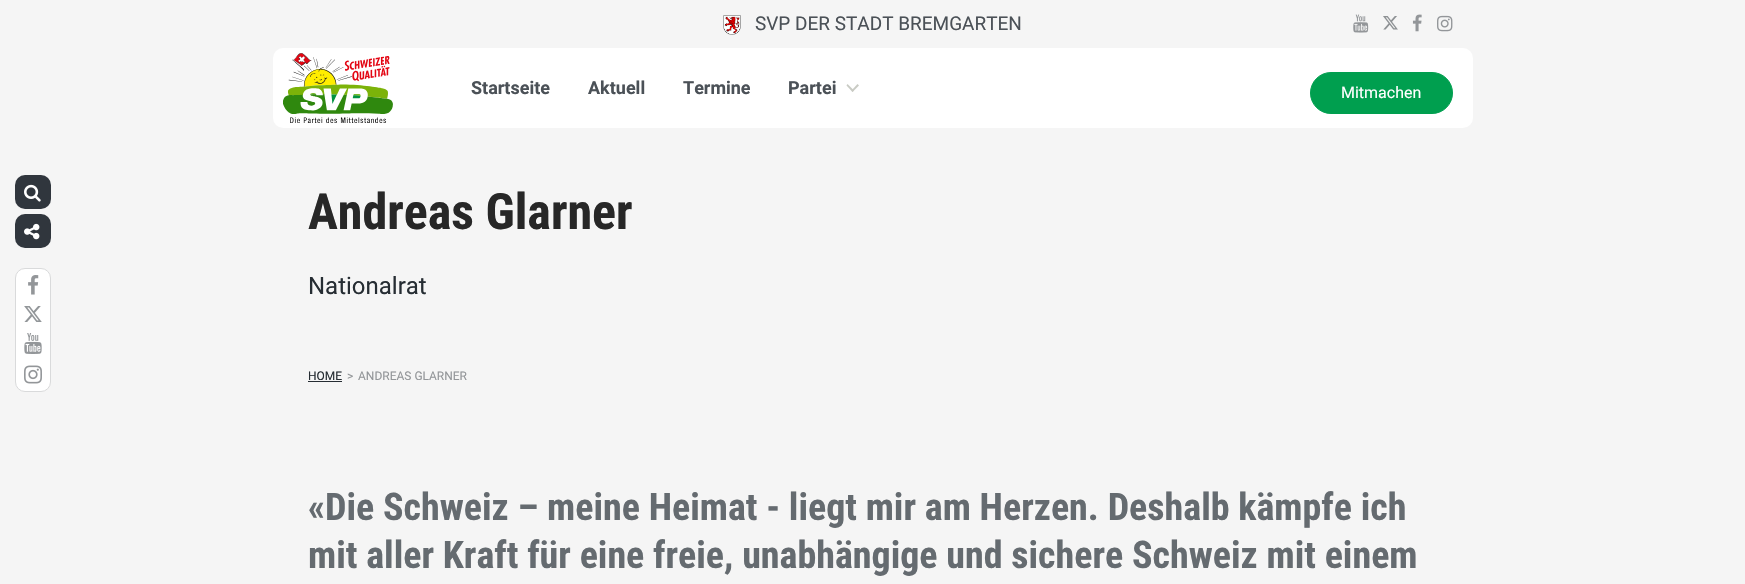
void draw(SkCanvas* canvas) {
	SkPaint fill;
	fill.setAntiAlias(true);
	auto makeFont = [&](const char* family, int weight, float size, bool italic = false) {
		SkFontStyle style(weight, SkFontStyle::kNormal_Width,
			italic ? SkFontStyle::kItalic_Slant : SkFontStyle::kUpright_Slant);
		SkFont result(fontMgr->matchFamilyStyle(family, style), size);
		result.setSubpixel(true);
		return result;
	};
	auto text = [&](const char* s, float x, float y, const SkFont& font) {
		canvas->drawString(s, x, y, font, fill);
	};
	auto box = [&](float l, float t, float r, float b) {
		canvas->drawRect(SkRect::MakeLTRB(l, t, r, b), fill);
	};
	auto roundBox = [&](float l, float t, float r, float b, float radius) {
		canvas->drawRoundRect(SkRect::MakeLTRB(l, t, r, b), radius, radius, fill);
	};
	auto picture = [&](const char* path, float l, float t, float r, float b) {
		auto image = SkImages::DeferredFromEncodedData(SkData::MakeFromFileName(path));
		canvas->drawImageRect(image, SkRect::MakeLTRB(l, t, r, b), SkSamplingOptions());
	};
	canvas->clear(0xFFF5F5F5);
	picture("image0.png", 723, 15, 741, 35);
	picture("image1.png", 1353, 14, 1369, 33);
	picture("image2.png", 1383, 16, 1398, 30);
	picture("image3.png", 1412, 14, 1422, 32);
	picture("image4.png", 1437, 15, 1453, 32);
	fill.setColor(0xFFFFFFFF);
	roundBox(273, 48, 1473, 128, 10);
	picture("image5.png", 283, 53, 393, 123);
	fill.setColor(0xFFC9CBC4);
	canvas->drawPath(SkPathBuilder().moveTo(847.5f, 84).lineTo(854, 90.5f).lineTo(852.5f, 92).lineTo(846.5f, 85.5f).close().detach(), fill);
	canvas->drawPath(SkPathBuilder().moveTo(851.5f, 90.5f).lineTo(857.5f, 84).lineTo(859, 85.5f).lineTo(852.5f, 92).close().detach(), fill);
	fill.setColor(0xFF009F4F);
	canvas->drawRoundRect(SkRect::MakeLTRB(1310.5f, 72.5f, 1452.5f, 113.5f), 20.5f, 20.5f, fill);
	fill.setStyle(SkPaint::kStroke_Style);
	fill.setStrokeWidth(1);
	canvas->drawRoundRect(SkRect::MakeLTRB(1310.5f, 72.5f, 1452.5f, 113.5f), 20.5f, 20.5f, fill);
	fill.setStyle(SkPaint::kFill_Style);
	fill.setColor(0xFF30363D);
	roundBox(15, 175, 51, 209, 10);
	picture("image6.png", 24, 184, 41, 202);
	roundBox(15, 214, 51, 248, 10);
	picture("image7.png", 24, 223, 40, 240);
	fill.setColor(0xFFFFFFFF);
	canvas->drawRoundRect(SkRect::MakeLTRB(15.5f, 268.5f, 50.5f, 391.5f), 9.5f, 9.5f, fill);
	fill.setStyle(SkPaint::kStroke_Style);
	fill.setColor(0xFFD9DADB);
	canvas->drawRoundRect(SkRect::MakeLTRB(15.5f, 268.5f, 50.5f, 391.5f), 9.5f, 9.5f, fill);
	picture("image8.png", 28, 275, 39, 295);
	picture("image9.png", 24, 306, 42, 322);
	picture("image10.png", 24, 333, 42, 354);
	picture("image11.png", 24, 365, 42, 384);
	fill.setStyle(SkPaint::kFill_Style);
	fill.setColor(0xFF262D33);
	box(308, 381, 342, 382);
	auto font1 = makeFont("Roboto", 400, 19);
	fill.setColor(0xFF4B5157);
	text("SVP DER STADT BREMGARTEN", 755, 30, font1);
	auto font2 = makeFont("Roboto", 700, 18);
	text("Startseite", 471, 94, font2);
	text("Aktuell", 588, 94, font2);
	text("Termine", 683, 94, font2);
	text("Partei", 788, 94, font2);
	auto font3 = makeFont("Roboto", 400, 16);
	fill.setColor(0xFFFFFFFF);
	text("Mitmachen", 1341, 98, font3);
	auto font4 = makeFont("Roboto Condensed", 700, 50);
	fill.setColor(0xFF272727);
	text("Andreas Glarner", 308, 229, font4);
	auto font5 = makeFont("Roboto", 400, 24);
	fill.setColor(0xFF262D33);
	text("Nationalrat", 308, 294, font5);
	auto font6 = makeFont("Roboto", 400, 12);
	text("HOME", 308, 380, font6);
	fill.setColor(0xFF939699);
	text(">", 347, 380, font6);
	text("ANDREAS GLARNER", 358, 380, font6);
	auto font7 = makeFont("Roboto Condensed", 700, 38);
	fill.setColor(0xFF656B70);
	text("«Die Schweiz – meine Heimat - liegt mir am Herzen. Deshalb kämpfe ich", 308, 520, font7);
	text("mit aller Kraft für eine freie, unabhängige und sichere Schweiz mit einem", 308, 568, font7);
}
